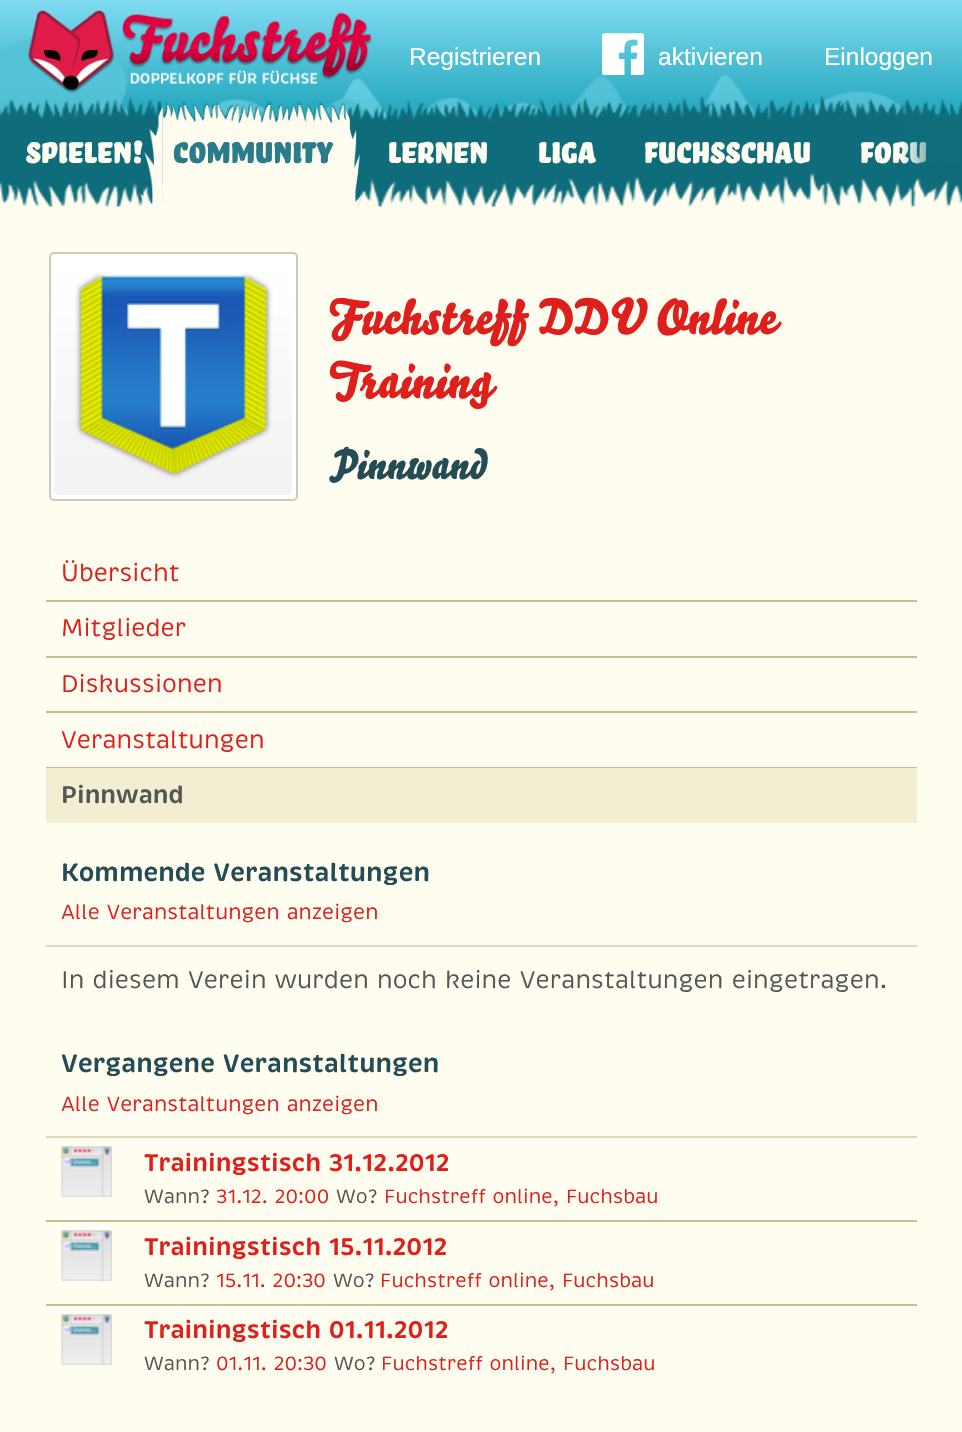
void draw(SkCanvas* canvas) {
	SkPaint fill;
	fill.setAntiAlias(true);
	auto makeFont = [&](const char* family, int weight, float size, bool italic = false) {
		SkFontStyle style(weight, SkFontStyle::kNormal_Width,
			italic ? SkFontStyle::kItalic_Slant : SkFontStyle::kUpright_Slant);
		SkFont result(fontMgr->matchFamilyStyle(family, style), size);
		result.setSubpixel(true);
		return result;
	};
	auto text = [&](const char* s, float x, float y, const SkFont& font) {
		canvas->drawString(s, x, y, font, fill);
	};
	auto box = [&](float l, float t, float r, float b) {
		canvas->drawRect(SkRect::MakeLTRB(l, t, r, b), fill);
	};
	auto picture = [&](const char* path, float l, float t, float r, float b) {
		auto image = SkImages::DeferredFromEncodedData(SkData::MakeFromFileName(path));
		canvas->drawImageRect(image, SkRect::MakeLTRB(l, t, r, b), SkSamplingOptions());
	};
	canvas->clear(0xFFFFFDF0);
	picture("image0.png", 0, 0, 962, 122);
	picture("image1.png", 28, 10, 372, 93);
	picture("image2.png", 602, 33, 644, 75);
	picture("image5.png", 0, 96, 962, 207);
	picture("image6.png", 0, 173, 962, 210);
	fill.setStyle(SkPaint::kStroke_Style);
	fill.setStrokeWidth(2);
	fill.setColor(0xFFCCCAC0);
	canvas->drawRoundRect(SkRect::MakeLTRB(50, 253, 297, 500), 4, 4, fill);
	fill.setStrokeWidth(4);
	fill.setColor(0xFFFFFFFF);
	canvas->drawRoundRect(SkRect::MakeLTRB(53, 256, 294, 497), 7, 7, fill);
	picture("image7.png", 54, 258, 292, 495);
	fill.setStyle(SkPaint::kFill_Style);
	fill.setColor(0xFFCABF94);
	box(46, 600, 917, 602);
	box(46, 656, 917, 658);
	box(46, 711, 917, 713);
	box(46, 767, 917, 768);
	fill.setColor(0xFFF3EDD1);
	box(46, 768, 917, 823);
	fill.setColor(0xFFDFD8B9);
	box(46, 945, 917, 947);
	box(46, 1136, 917, 1138);
	fill.setColor(0xFFCABF94);
	box(46, 1220, 917, 1222);
	picture("image8.png", 61, 1146, 112, 1197);
	box(46, 1304, 917, 1306);
	picture("image9.png", 61, 1230, 112, 1281);
	picture("image9.png", 61, 1314, 112, 1365);
	auto font1 = makeFont("Liberation Sans", 400, 24.5f);
	fill.setColor(0xFFFFFFFF);
	text("Registrieren", 409, 65, font1);
	text("aktivieren", 658, 65, font1);
	text("Einloggen", 824, 65, font1);
	auto font2 = makeFont("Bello", 400, 38.5f);
	fill.setColor(0xFFFFFDF0);
	text("Spielen!", 25, 163, font2);
	picture("image3.png", 140, 106, 163, 207);
	picture("image4.png", 162, 105, 362, 207);
	fill.setColor(0xFF2A7C8B);
	text("Community", 172, 163, font2);
	fill.setColor(0xFFFFFDF0);
	text("Lernen", 387, 163, font2);
	text("Liga", 537, 163, font2);
	text("Fuchsschau", 643, 163, font2);
	text("Foru", 859, 163, font2);
	{
		const SkColor colors[] = {0x000F6D7B, 0xB30F6D7B};
		const float stops[] = {0, 0.6f};
		const SkPoint ends[] = {{901, 159}, {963, 159}};
		fill.setShader(SkGradientShader::MakeLinear(ends, colors, stops, 2, SkTileMode::kClamp));
		fill.setAlpha(255);
	}
	box(902, 114, 960, 164);
	auto font3 = makeFont("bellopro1", 400, 49);
	fill.setShader(nullptr);
	fill.setColor(0xFFDE1F1C);
	text("Fuchstreff DDV Online", 329, 334, font3);
	text("Training", 329, 398, font3);
	auto font4 = makeFont("bellopro1", 400, 41.5f);
	fill.setColor(0xFF254B54);
	text("Pinnwand", 329, 479, font4);
	auto font5 = makeFont("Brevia", 400, 24.5f);
	fill.setColor(0xFFDE1F1C);
	text("Übersicht", 61, 581, font5);
	text("Mitglieder", 61, 636, font5);
	text("Diskussionen", 61, 692, font5);
	text("Veranstaltungen", 61, 748, font5);
	auto font6 = makeFont("Brevia", 600, 24.5f);
	fill.setColor(0xFF555555);
	text("Pinnwand", 61, 803, font6);
	auto font7 = makeFont("Brevia", 600, 25.75f);
	fill.setColor(0xFF254B54);
	text("Kommende Veranstaltungen", 61, 881, font7);
	auto font8 = makeFont("Brevia", 400, 20.8f);
	fill.setColor(0xFFDE1F1C);
	text("Alle Veranstaltungen anzeigen", 61, 919, font8);
	fill.setColor(0xFF555555);
	text("In diesem Verein wurden noch keine Veranstaltungen eingetragen.", 61, 988, font5);
	fill.setColor(0xFF254B54);
	text("Vergangene Veranstaltungen", 61, 1072, font7);
	fill.setColor(0xFFDE1F1C);
	text("Alle Veranstaltungen anzeigen", 61, 1111, font8);
	text("Trainingstisch 31.12.2012", 144, 1171, font6);
	auto font9 = makeFont("Brevia", 400, 19.6f);
	fill.setColor(0xFF555555);
	text("Wann?", 144, 1203, font9);
	fill.setColor(0xFFDE1F1C);
	text("31.12. 20:00", 216, 1203, font9);
	fill.setColor(0xFF555555);
	text("Wo?", 336, 1203, font9);
	fill.setColor(0xFFDE1F1C);
	text("Fuchstreff online, Fuchsbau", 384, 1203, font9);
	text("Trainingstisch 15.11.2012", 144, 1255, font6);
	fill.setColor(0xFF555555);
	text("Wann?", 144, 1287, font9);
	fill.setColor(0xFFDE1F1C);
	text("15.11. 20:30", 216, 1287, font9);
	fill.setColor(0xFF555555);
	text("Wo?", 333, 1287, font9);
	fill.setColor(0xFFDE1F1C);
	text("Fuchstreff online, Fuchsbau", 380, 1287, font9);
	text("Trainingstisch 01.11.2012", 144, 1338, font6);
	fill.setColor(0xFF555555);
	text("Wann?", 144, 1370, font9);
	fill.setColor(0xFFDE1F1C);
	text("01.11. 20:30", 216, 1370, font9);
	fill.setColor(0xFF555555);
	text("Wo?", 334, 1370, font9);
	fill.setColor(0xFFDE1F1C);
	text("Fuchstreff online, Fuchsbau", 381, 1370, font9);
}
